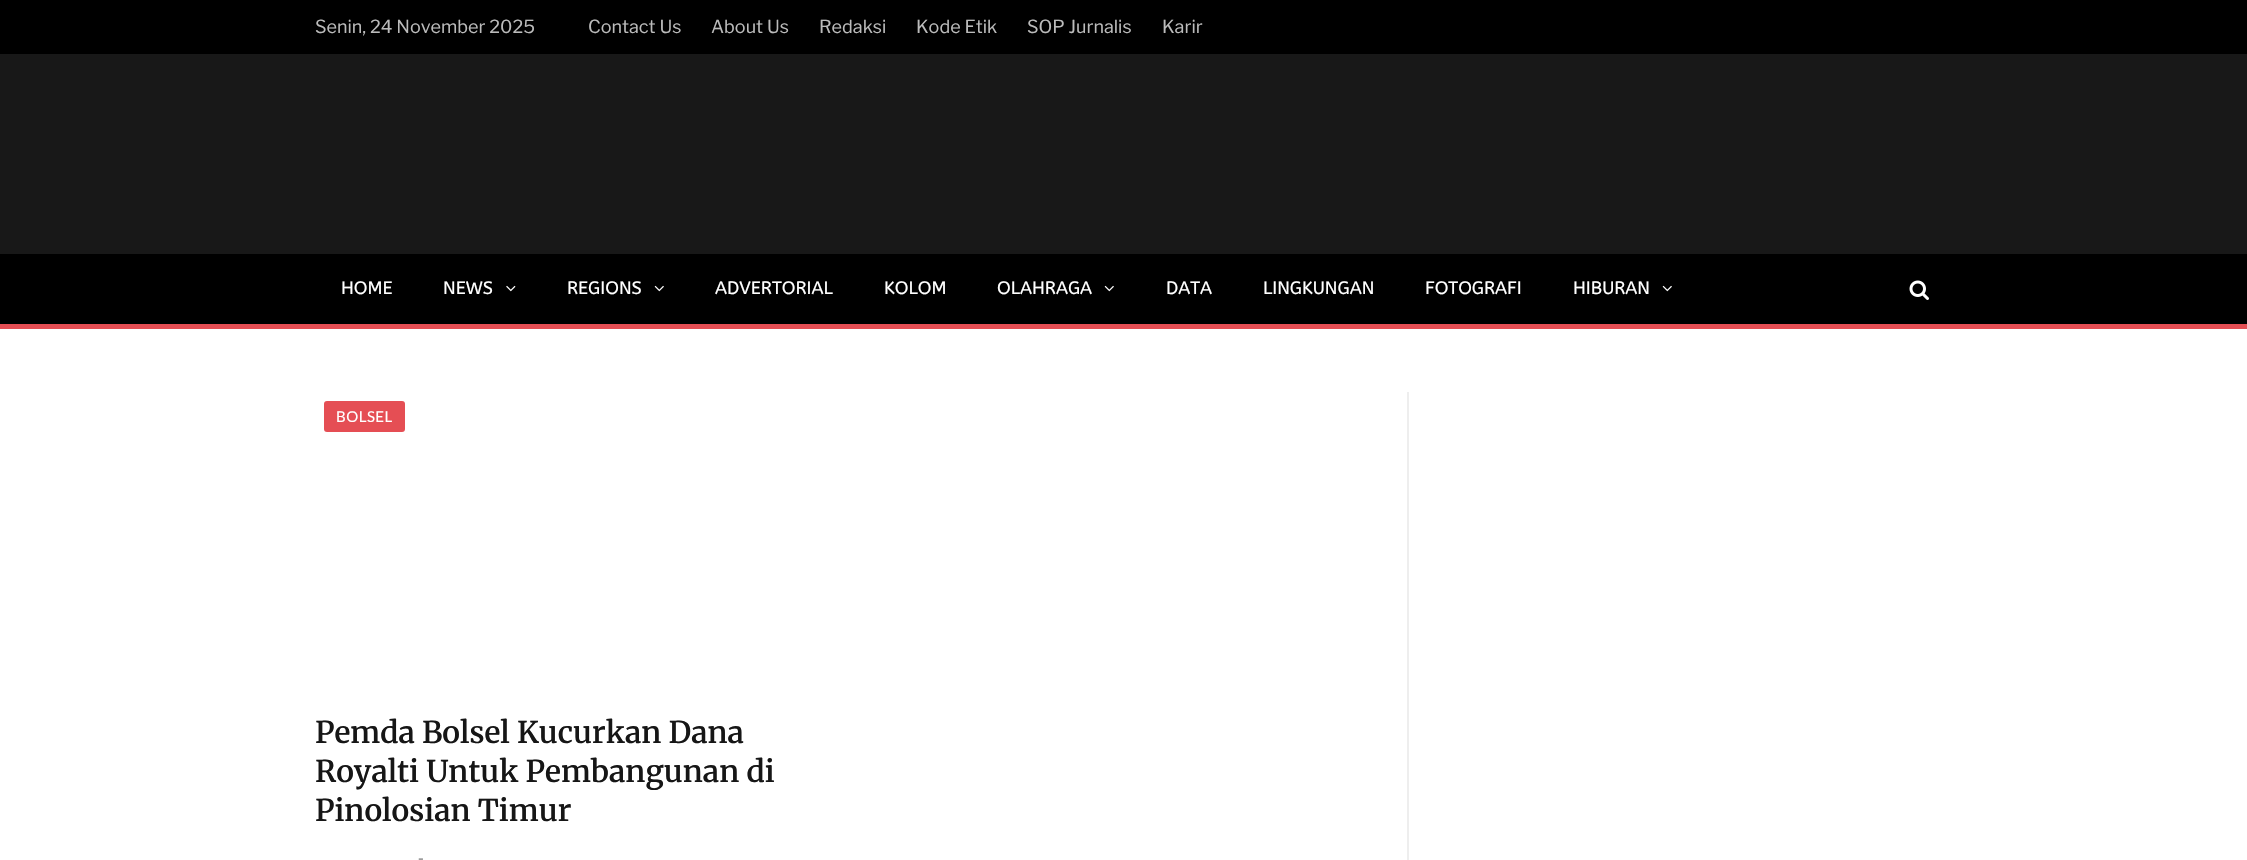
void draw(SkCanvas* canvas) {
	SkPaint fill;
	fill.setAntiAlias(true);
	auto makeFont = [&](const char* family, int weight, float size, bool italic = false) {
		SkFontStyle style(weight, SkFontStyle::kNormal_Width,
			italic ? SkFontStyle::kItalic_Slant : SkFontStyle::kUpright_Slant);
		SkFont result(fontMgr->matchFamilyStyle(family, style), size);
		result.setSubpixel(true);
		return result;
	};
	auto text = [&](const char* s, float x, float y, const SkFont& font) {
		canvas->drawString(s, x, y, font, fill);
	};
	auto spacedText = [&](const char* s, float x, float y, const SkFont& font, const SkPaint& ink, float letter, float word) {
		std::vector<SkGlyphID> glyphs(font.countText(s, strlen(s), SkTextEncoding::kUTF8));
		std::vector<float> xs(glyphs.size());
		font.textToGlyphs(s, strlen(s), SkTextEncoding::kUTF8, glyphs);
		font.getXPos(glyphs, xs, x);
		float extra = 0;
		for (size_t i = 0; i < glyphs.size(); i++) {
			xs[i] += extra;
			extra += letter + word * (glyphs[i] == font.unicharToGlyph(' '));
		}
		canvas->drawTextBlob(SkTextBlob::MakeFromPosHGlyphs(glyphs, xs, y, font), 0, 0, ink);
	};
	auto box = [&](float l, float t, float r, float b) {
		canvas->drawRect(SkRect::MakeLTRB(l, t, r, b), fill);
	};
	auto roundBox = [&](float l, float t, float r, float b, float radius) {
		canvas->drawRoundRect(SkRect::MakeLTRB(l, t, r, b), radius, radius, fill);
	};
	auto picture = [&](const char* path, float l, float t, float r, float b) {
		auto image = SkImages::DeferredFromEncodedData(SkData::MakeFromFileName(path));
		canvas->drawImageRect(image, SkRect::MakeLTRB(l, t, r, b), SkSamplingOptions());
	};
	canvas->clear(0xFFFFFFFF);
	fill.setColor(0xFF000000);
	box(0, 0, 2247, 54);
	fill.setColor(0xFF181818);
	box(0, 54, 2247, 254);
	fill.setColor(0xFF000000);
	box(0, 254, 2247, 324);
	fill.setColor(0xFFE54E54);
	box(0, 324, 2247, 329);
	picture("image0.png", 506, 285, 516, 292);
	picture("image1.png", 654, 285, 664, 292);
	picture("image1.png", 1104, 285, 1114, 292);
	picture("image1.png", 1662, 285, 1672, 292);
	picture("image2.png", 1909, 280, 1929, 300);
	roundBox(324, 401, 405, 432, 3);
	fill.setColor(0xFFEEEEEE);
	box(1407, 392, 1409, 860);
	auto font1 = makeFont("Libre Franklin", 400, 18);
	fill.setColor(0xFFBBBBBB);
	text("Senin, 24 November 2025", 315, 33, font1);
	text("Contact Us", 588, 33, font1);
	text("About Us", 711, 33, font1);
	text("Redaksi", 819, 33, font1);
	text("Kode Etik", 916, 33, font1);
	text("SOP Jurnalis", 1027, 33, font1);
	text("Karir", 1162, 33, font1);
	auto font2 = makeFont("ABeeZee", 400, 18);
	fill.setColor(0xFFFFFFFF);
	text("HOME", 341, 294, font2);
	text("NEWS", 443, 294, font2);
	text("REGIONS", 567, 294, font2);
	text("ADVERTORIAL", 715, 294, font2);
	text("KOLOM", 884, 294, font2);
	text("OLAHRAGA", 997, 294, font2);
	text("DATA", 1166, 294, font2);
	text("LINGKUNGAN", 1263, 294, font2);
	text("FOTOGRAFI", 1425, 294, font2);
	text("HIBURAN", 1573, 294, font2);
	auto font3 = makeFont("Lato", 400, 15);
	spacedText("BOLSEL", 336, 422, font3, fill, 0.5f, 0);
	auto font4 = makeFont("Merriweather", 600, 30);
	fill.setColor(0xFF161616);
	text("Pemda Bolsel Kucurkan Dana", 315, 743, font4);
	text("Royalti Untuk Pembangunan di", 315, 782, font4);
	text("Pinolosian Timur", 315, 821, font4);
	auto font5 = makeFont("Lato", 700, 16);
	fill.setColor(0xFF9C9C9C);
	text("-", 418, 864, font5);
}
